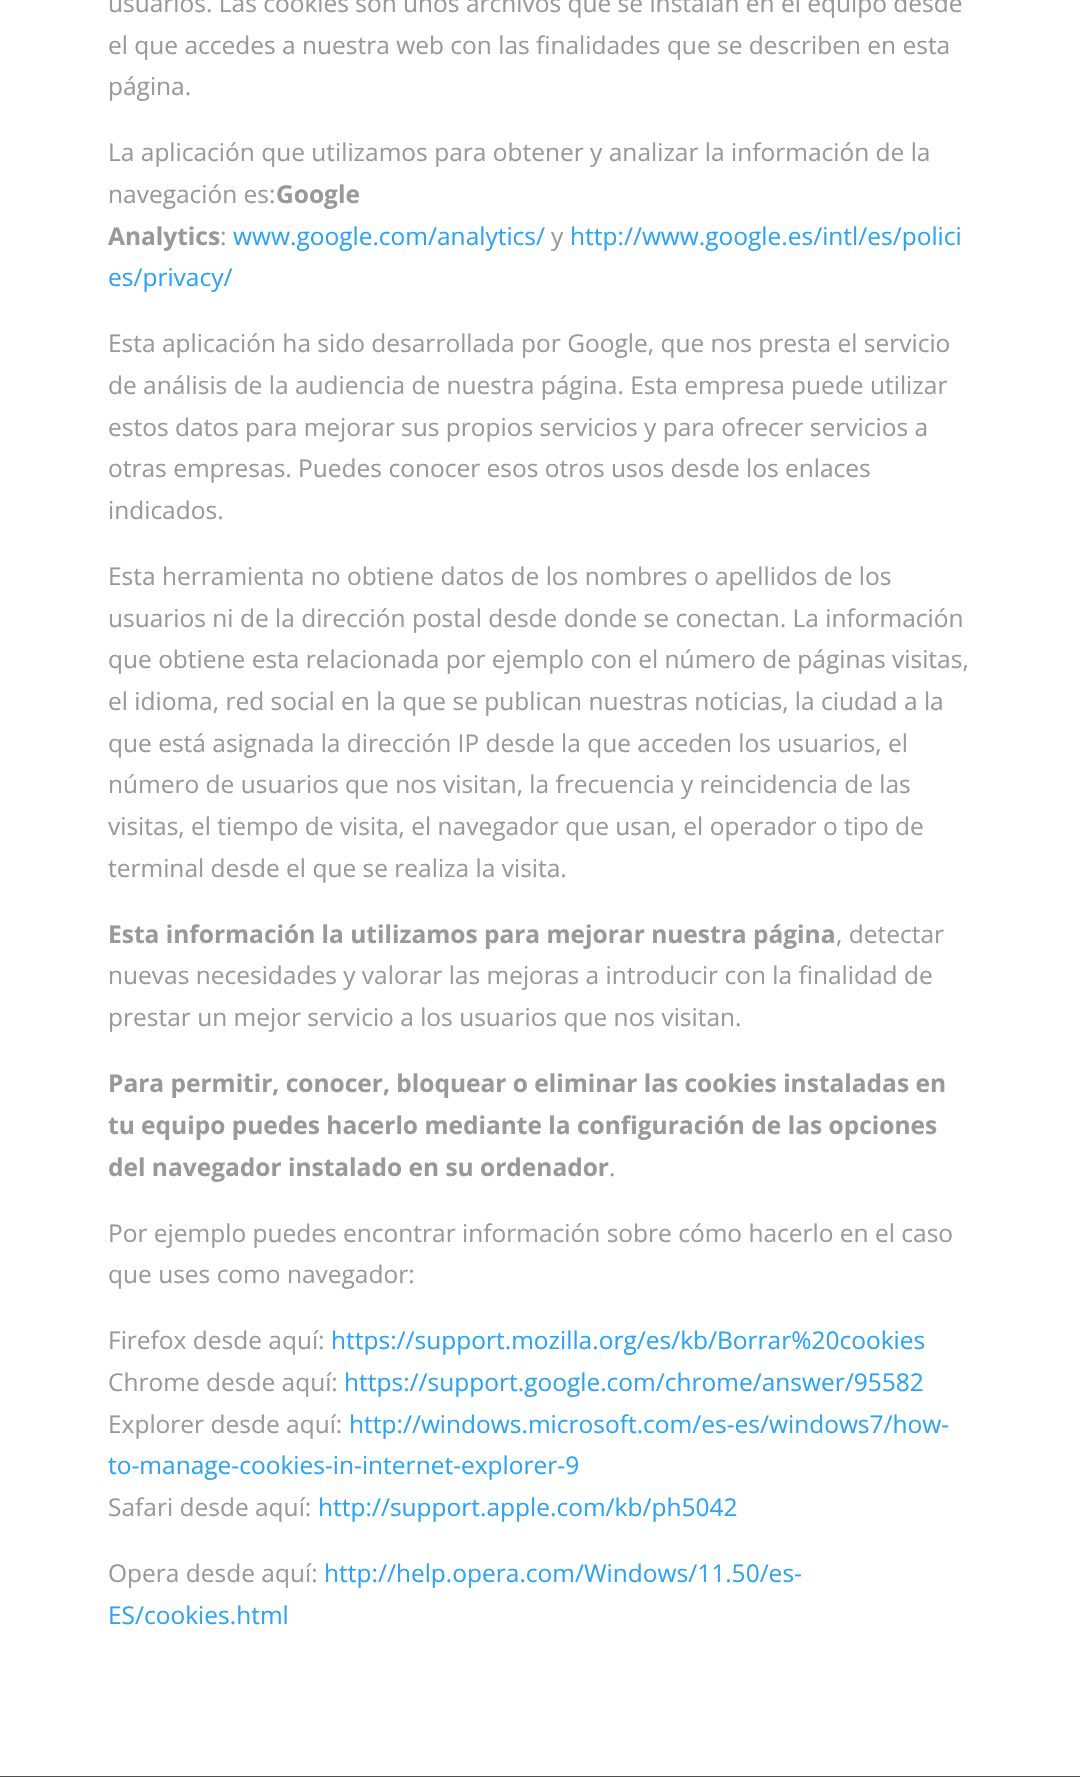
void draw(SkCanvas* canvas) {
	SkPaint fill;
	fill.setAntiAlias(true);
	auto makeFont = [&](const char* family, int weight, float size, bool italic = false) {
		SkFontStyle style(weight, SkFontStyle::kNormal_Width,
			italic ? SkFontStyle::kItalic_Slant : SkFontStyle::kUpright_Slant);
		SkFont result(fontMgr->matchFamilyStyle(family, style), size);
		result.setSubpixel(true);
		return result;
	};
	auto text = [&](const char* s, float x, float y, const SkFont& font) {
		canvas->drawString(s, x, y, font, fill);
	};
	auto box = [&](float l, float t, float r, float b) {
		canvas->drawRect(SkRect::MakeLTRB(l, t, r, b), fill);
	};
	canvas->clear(0xFFFFFFFF);
	fill.setColor(0xFF4F4F4F);
	box(0, 1776, 1080, 1777);
	auto font1 = makeFont("Open Sans", 400, 24.5f);
	fill.setColor(0xFF999999);
	text("usuarios. Las cookies son unos archivos que se instalan en el equipo desde", 108, 12, font1);
	text("el que accedes a nuestra web con las finalidades que se describen en esta", 108, 54, font1);
	text("página.", 108, 95, font1);
	text("La aplicación que utilizamos para obtener y analizar la información de la", 108, 161, font1);
	text("navegación es:", 108, 203, font1);
	auto font2 = makeFont("Open Sans", 700, 24.5f);
	text("Google", 276, 203, font2);
	text("Analytics", 108, 245, font2);
	text(":", 220, 245, font1);
	fill.setColor(0xFF2EA3F2);
	text("www.google.com/analytics/", 233, 245, font1);
	fill.setColor(0xFF999999);
	text("y", 551, 245, font1);
	fill.setColor(0xFF2EA3F2);
	text("http://www.google.es/intl/es/polici", 570, 245, font1);
	text("es/privacy/", 108, 286, font1);
	fill.setColor(0xFF999999);
	text("Esta aplicación ha sido desarrollada por Google, que nos presta el servicio", 108, 352, font1);
	text("de análisis de la audiencia de nuestra página. Esta empresa puede utilizar", 108, 394, font1);
	text("estos datos para mejorar sus propios servicios y para ofrecer servicios a", 108, 436, font1);
	text("otras empresas. Puedes conocer esos otros usos desde los enlaces", 108, 477, font1);
	text("indicados.", 108, 519, font1);
	text("Esta herramienta no obtiene datos de los nombres o apellidos de los", 108, 585, font1);
	text("usuarios ni de la dirección postal desde donde se conectan. La información", 108, 627, font1);
	text("que obtiene esta relacionada por ejemplo con el número de páginas visitas,", 108, 668, font1);
	text("el idioma, red social en la que se publican nuestras noticias, la ciudad a la", 108, 710, font1);
	text("que está asignada la dirección IP desde la que acceden los usuarios, el", 108, 752, font1);
	text("número de usuarios que nos visitan, la frecuencia y reincidencia de las", 108, 793, font1);
	text("visitas, el tiempo de visita, el navegador que usan, el operador o tipo de", 108, 835, font1);
	text("terminal desde el que se realiza la visita.", 108, 877, font1);
	text("Esta información la utilizamos para mejorar nuestra página", 108, 943, font2);
	text(", detectar", 836, 943, font1);
	text("nuevas necesidades y valorar las mejoras a introducir con la finalidad de", 108, 984, font1);
	text("prestar un mejor servicio a los usuarios que nos visitan.", 108, 1026, font1);
	text("Para permitir, conocer, bloquear o eliminar las cookies instaladas en", 108, 1092, font2);
	text("tu equipo puedes hacerlo mediante la configuración de las opciones", 108, 1134, font2);
	text("del navegador instalado en su ordenador", 108, 1176, font2);
	text(".", 609, 1176, font1);
	text("Por ejemplo puedes encontrar información sobre cómo hacerlo en el caso", 108, 1242, font1);
	text("que uses como navegador:", 108, 1283, font1);
	text("Firefox desde aquí:", 108, 1349, font1);
	fill.setColor(0xFF2EA3F2);
	text("https://support.mozilla.org/es/kb/Borrar%20cookies", 331, 1349, font1);
	fill.setColor(0xFF999999);
	text("Chrome desde aquí:", 108, 1391, font1);
	fill.setColor(0xFF2EA3F2);
	text("https://support.google.com/chrome/answer/95582", 344, 1391, font1);
	fill.setColor(0xFF999999);
	text("Explorer desde aquí:", 108, 1433, font1);
	fill.setColor(0xFF2EA3F2);
	text("http://windows.microsoft.com/es-es/windows7/how-", 349, 1433, font1);
	text("to-manage-cookies-in-internet-explorer-9", 108, 1474, font1);
	fill.setColor(0xFF999999);
	text("Safari desde aquí:", 108, 1516, font1);
	fill.setColor(0xFF2EA3F2);
	text("http://support.apple.com/kb/ph5042", 318, 1516, font1);
	fill.setColor(0xFF999999);
	text("Opera desde aquí:", 108, 1582, font1);
	fill.setColor(0xFF2EA3F2);
	text("http://help.opera.com/Windows/11.50/es-", 324, 1582, font1);
	text("ES/cookies.html", 108, 1624, font1);
}
